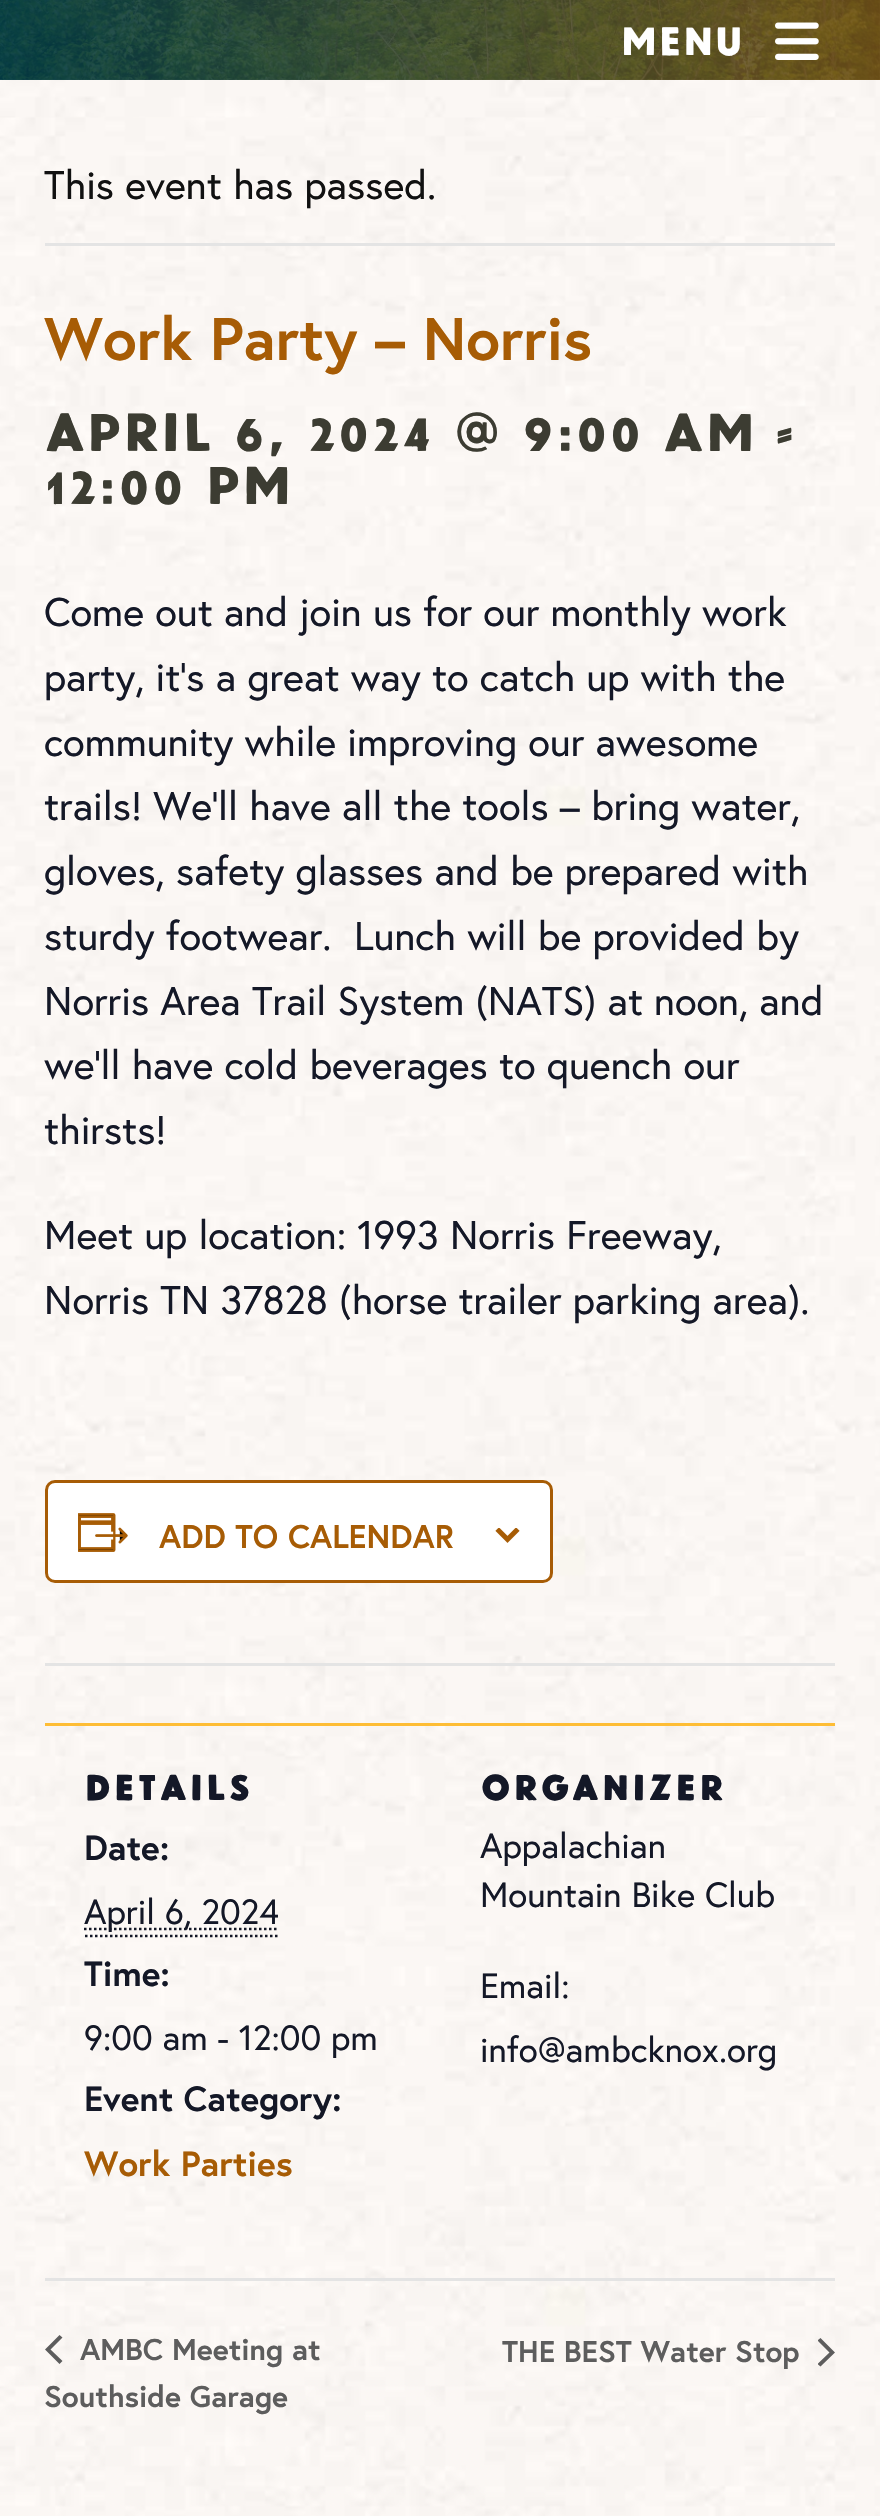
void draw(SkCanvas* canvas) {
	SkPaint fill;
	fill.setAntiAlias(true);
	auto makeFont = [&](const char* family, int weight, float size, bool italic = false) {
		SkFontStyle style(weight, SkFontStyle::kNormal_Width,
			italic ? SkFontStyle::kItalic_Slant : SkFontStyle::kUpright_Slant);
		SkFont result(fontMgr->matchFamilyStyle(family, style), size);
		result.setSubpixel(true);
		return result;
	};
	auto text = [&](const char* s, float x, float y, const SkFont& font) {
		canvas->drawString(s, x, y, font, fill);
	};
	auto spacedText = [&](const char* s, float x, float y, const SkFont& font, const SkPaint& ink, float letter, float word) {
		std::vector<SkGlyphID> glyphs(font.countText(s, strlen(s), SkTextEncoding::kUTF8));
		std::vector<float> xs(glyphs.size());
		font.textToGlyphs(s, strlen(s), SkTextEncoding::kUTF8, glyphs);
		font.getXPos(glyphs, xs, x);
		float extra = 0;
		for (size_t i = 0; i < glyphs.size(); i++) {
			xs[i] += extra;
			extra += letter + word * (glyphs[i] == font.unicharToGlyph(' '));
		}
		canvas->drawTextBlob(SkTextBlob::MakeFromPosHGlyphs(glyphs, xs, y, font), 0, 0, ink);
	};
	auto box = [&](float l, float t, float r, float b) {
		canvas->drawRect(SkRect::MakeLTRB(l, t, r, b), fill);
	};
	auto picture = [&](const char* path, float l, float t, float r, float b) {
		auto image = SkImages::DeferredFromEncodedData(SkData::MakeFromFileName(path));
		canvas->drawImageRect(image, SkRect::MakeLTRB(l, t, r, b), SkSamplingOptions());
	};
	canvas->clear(0xFFFFFFFF);
	picture("image0.png", 0, 0, 880, 118);
	picture("image1.png", 0, 0, 880, 80);
	fill.setColor(0x99003B4C);
	box(0, 0, 880, 80);
	{
		const SkColor colors[] = {0x99003B4C, 0x99A75C05};
		const float stops[] = {0, 1};
		const SkPoint ends[] = {{0, 40}, {880, 40}};
		fill.setShader(SkGradientShader::MakeLinear(ends, colors, stops, 2, SkTileMode::kClamp));
		fill.setAlpha(255);
	}
	box(0, 0, 880, 80);
	picture("image2.png", 775, 22, 819, 60);
	picture("image3.png", 0, 117, 880, 2516);
	fill.setShader(nullptr);
	fill.setColor(0xFFE4E4E4);
	box(45, 243, 835, 246);
	fill.setColor(0xFFFFFFFF);
	canvas->drawRoundRect(SkRect::MakeLTRB(46.5f, 1481.5f, 551.5f, 1581.5f), 8.5f, 8.5f, fill);
	fill.setStyle(SkPaint::kStroke_Style);
	fill.setStrokeWidth(3);
	fill.setColor(0xFFA75C05);
	canvas->drawRoundRect(SkRect::MakeLTRB(46.5f, 1481.5f, 551.5f, 1581.5f), 8.5f, 8.5f, fill);
	picture("image4.png", 78, 1513, 128, 1552);
	picture("image5.png", 495, 1528, 520, 1543);
	fill.setStyle(SkPaint::kFill_Style);
	fill.setColor(0xFFE4E4E4);
	box(45, 1663, 835, 1666);
	fill.setColor(0xFFFEBD35);
	box(45, 1723, 835, 1726);
	fill.setStyle(SkPaint::kStroke_Style);
	fill.setStrokeWidth(2.5f);
	fill.setColor(0xFF141827);
	fill.setPathEffect(SkDashPathEffect::Make({{2.5f, 2.5f}}, 0));
	canvas->drawPath(SkPathBuilder().moveTo(85, 1936).lineTo(280, 1936).detach(), fill);
	fill.setPathEffect(nullptr);
	fill.setPathEffect(SkDashPathEffect::Make({{2.5f, 2.5f}}, 0));
	canvas->drawPath(SkPathBuilder().moveTo(84, 1929).lineTo(279, 1929).detach(), fill);
	fill.setPathEffect(nullptr);
	fill.setStyle(SkPaint::kFill_Style);
	fill.setColor(0xFFE4E4E4);
	box(45, 2278, 835, 2281);
	fill.setColor(0xFF5D5D5D);
	canvas->drawPath(SkPathBuilder().moveTo(62.5f, 2361).lineTo(59.5f, 2364).lineTo(45, 2349.5f).lineTo(59.5f, 2335).lineTo(62.5f, 2337.5f).lineTo(50.5f, 2349.5f).close().detach(), fill);
	canvas->save();
	canvas->clipRect(SkRect::MakeLTRB(818, 2338, 835, 2368));
	canvas->drawPath(SkPathBuilder().moveTo(817.5f, 2340.5f).lineTo(820.5f, 2338).lineTo(835, 2352.5f).lineTo(820.5f, 2366.5f).lineTo(817.5f, 2364).lineTo(829.5f, 2352.5f).close().detach(), fill);
	canvas->restore();
	auto font1 = makeFont("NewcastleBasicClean", 400, 40);
	fill.setColor(0xFFFFFFFF);
	text("Menu", 620, 55, font1);
	auto font2 = makeFont("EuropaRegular", 400, 40);
	fill.setColor(0xFF111111);
	text("This event has passed.", 44, 199, font2);
	auto font3 = makeFont("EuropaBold", 700, 60);
	fill.setColor(0xFFA75C05);
	text("Work Party – Norris", 44, 360, font3);
	auto font4 = makeFont("NewcastleBasicClean", 400, 54);
	fill.setColor(0xFF3C3C32);
	text("April 6, 2024 @ 9:00 am", 44, 451, font4);
	text("-", 776, 451, font4);
	text("12:00 pm", 44, 504, font4);
	fill.setColor(0xFF141827);
	text("Come out and join us for our monthly work", 44, 626, font2);
	text("party, it’s a great way to catch up with the", 44, 691, font2);
	text("community while improving our awesome", 44, 756, font2);
	text("trails! We’ll have all the tools – bring water,", 44, 820, font2);
	text("gloves, safety glasses and be prepared with", 44, 885, font2);
	text("sturdy footwear.", 44, 950, font2);
	text("Lunch will be provided by", 354, 950, font2);
	text("Norris Area Trail System (NATS) at", 44, 1015, font2);
	text("noon, and", 654, 1015, font2);
	text("we’ll have cold beverages to quench our", 44, 1079, font2);
	text("thirsts!", 44, 1144, font2);
	text("Meet up location: 1993 Norris Freeway,", 44, 1249, font2);
	text("Norris TN 37828 (horse trailer parking area).", 44, 1314, font2);
	auto font5 = makeFont("EuropaBold", 700, 32.75f);
	fill.setColor(0xFFA75C05);
	text("ADD TO CALENDAR", 159, 1548, font5);
	auto font6 = makeFont("NewcastleBasicClean", 700, 35);
	fill.setColor(0xFF141827);
	spacedText("DETAILS", 84, 1800, font6, fill, 2.5f, 0);
	auto font7 = makeFont("EuropaBold", 700, 35);
	text("Date:", 84, 1860, font7);
	auto font8 = makeFont("EuropaRegular", 400, 35);
	text("April 6, 2024", 84, 1924, font8);
	text("Time:", 84, 1986, font7);
	text("9:00 am - 12:00 pm", 84, 2050, font8);
	text("Event Category:", 84, 2111, font7);
	fill.setColor(0xFFA75C05);
	text("Work Parties", 84, 2176, font7);
	fill.setColor(0xFF141827);
	spacedText("ORGANIZER", 480, 1800, font6, fill, 2.5f, 0);
	text("Appalachian", 480, 1858, font8);
	text("Mountain Bike Club", 480, 1907, font8);
	text("Email:", 480, 1998, font8);
	text("info@ambcknox.org", 480, 2062, font8);
	auto font9 = makeFont("EuropaBold", 700, 30);
	fill.setColor(0xFF5D5D5D);
	text("AMBC Meeting at", 80, 2360, font9);
	text("Southside Garage", 44, 2407, font9);
	text("THE BEST Water Stop", 502, 2362, font9);
}
